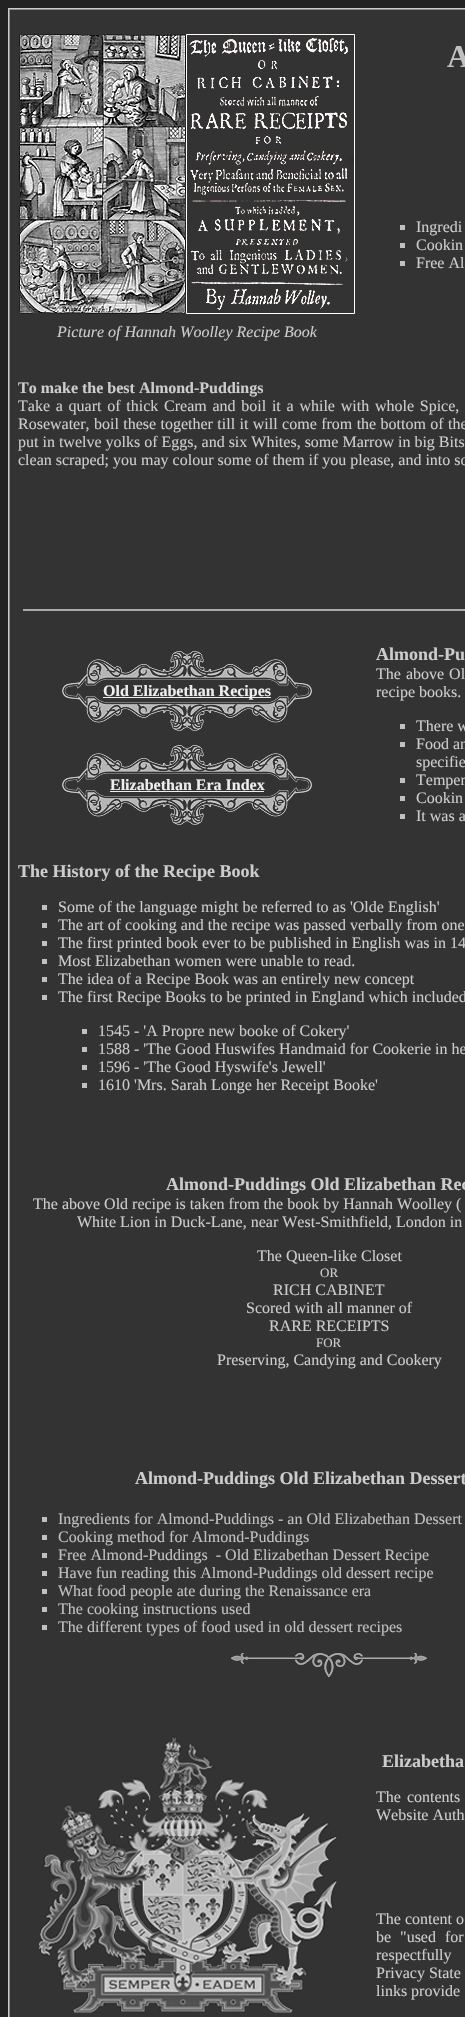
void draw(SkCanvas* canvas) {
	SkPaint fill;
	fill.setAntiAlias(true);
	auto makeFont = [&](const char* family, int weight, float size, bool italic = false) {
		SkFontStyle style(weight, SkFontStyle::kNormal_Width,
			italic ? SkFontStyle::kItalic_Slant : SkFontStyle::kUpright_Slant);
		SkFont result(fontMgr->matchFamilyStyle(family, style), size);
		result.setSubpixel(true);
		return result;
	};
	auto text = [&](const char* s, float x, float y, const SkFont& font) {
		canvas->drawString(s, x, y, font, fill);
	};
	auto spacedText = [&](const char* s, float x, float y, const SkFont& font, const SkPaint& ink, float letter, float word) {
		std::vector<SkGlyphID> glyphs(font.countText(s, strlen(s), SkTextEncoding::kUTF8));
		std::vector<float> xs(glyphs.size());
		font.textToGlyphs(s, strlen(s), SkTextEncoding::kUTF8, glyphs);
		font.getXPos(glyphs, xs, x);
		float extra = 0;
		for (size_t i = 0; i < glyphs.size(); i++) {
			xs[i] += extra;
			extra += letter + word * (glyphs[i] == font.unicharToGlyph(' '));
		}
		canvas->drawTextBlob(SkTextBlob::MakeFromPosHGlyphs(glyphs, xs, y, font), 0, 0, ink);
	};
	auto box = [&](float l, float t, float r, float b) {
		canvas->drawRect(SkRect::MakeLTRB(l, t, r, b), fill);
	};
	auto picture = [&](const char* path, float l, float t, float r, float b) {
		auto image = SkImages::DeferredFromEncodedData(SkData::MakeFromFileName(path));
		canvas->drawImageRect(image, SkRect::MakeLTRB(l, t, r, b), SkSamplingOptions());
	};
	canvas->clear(0xFF222222);
	fill.setColor(0xFF333333);
	box(10, 10, 465, 2017);
	fill.setStyle(SkPaint::kStroke_Style);
	fill.setStrokeWidth(1);
	fill.setColor(0xFFCCCCCC);
	canvas->drawRect(SkRect::MakeLTRB(8.5f, 8.5f, 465.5f, 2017.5f), fill);
	fill.setStyle(SkPaint::kFill_Style);
	fill.setColor(0xFF888888);
	box(9, 9, 465, 10);
	box(9, 9, 10, 2017);
	picture("image0.png", 19, 34, 355, 314);
	fill.setColor(0xFFC0C0C0);
	box(400, 225, 405, 230);
	box(400, 243, 405, 248);
	box(400, 261, 405, 266);
	fill.setColor(0xFFABABAB);
	box(23, 609, 465, 611);
	picture("image1.png", 62, 651, 312, 731);
	fill.setColor(0xFFEEEEEE);
	box(103, 697, 271, 698);
	picture("image1.png", 62, 745, 312, 825);
	box(110, 791, 264, 792);
	fill.setColor(0xFFC0C0C0);
	box(400, 724, 405, 729);
	box(400, 742, 405, 747);
	box(400, 778, 405, 783);
	box(400, 796, 405, 801);
	box(400, 814, 405, 819);
	box(42, 905, 47, 910);
	box(42, 923, 47, 928);
	box(42, 941, 47, 946);
	box(42, 959, 47, 964);
	box(42, 977, 47, 982);
	box(42, 995, 47, 1000);
	box(82, 1029, 87, 1034);
	box(82, 1047, 87, 1052);
	box(82, 1065, 87, 1070);
	box(82, 1083, 87, 1088);
	box(42, 1517, 47, 1522);
	box(42, 1535, 47, 1540);
	box(42, 1553, 47, 1558);
	box(42, 1571, 47, 1576);
	box(42, 1589, 47, 1594);
	box(42, 1607, 47, 1612);
	box(42, 1625, 47, 1630);
	picture("image2.png", 231, 1653, 427, 1678);
	picture("image3.png", 39, 1736, 337, 2013);
	auto font1 = makeFont("Liberation Serif", 700, 32);
	text("A", 447, 67, font1);
	auto font2 = makeFont("Liberation Serif", 400, 16);
	fill.setColor(0xFFCCCCCC);
	text("Ingredi", 416, 232, font2);
	text("Cookin", 416, 250, font2);
	text("Free Al", 416, 268, font2);
	auto font3 = makeFont("Liberation Serif", 400, 16, true);
	text("Picture of Hannah Woolley Recipe Book", 57, 337, font3);
	auto font4 = makeFont("Liberation Serif", 700, 16);
	text("To make the best Almond-Puddings", 18, 393, font4);
	spacedText("Take a quart of thick Cream and boil it a while with whole Spice,", 18, 411, font2, fill, 0, 1.75f);
	spacedText("Rosewater, boil these together till it will come from the bottom of the", 18, 429, font2, fill, 0, 0.4f);
	text("put in twelve yolks of Eggs, and six Whites, some Marrow in big Bits", 18, 447, font2);
	text("clean scraped; you may colour some of them if you please, and into so", 18, 465, font2);
	fill.setColor(0xFFEEEEEE);
	text("Old Elizabethan Recipes", 103, 696, font4);
	text("Elizabethan Era Index", 110, 790, font4);
	auto font5 = makeFont("Liberation Serif", 700, 18);
	fill.setColor(0xFFCCCCCC);
	text("Almond-Pu", 376, 660, font5);
	spacedText("The above Ol", 376, 679, font2, fill, 0, 1);
	text("recipe books.", 376, 697, font2);
	text("There w", 416, 731, font2);
	text("Food an", 416, 749, font2);
	text("specifie", 416, 767, font2);
	text("Temper", 416, 785, font2);
	text("Cookin", 416, 803, font2);
	text("It was a", 416, 821, font2);
	text("The History of the Recipe Book", 18, 877, font5);
	text("Some of the language might be referred to as 'Olde English'", 58, 912, font2);
	text("The art of cooking and the recipe was passed verbally from one", 58, 930, font2);
	text("The first printed book ever to be published in English was in 14", 58, 948, font2);
	text("Most Elizabethan women were unable to read.", 58, 966, font2);
	text("The idea of a Recipe Book was an entirely new concept", 58, 984, font2);
	text("The first Recipe Books to be printed in England which included", 58, 1002, font2);
	text("1545 - 'A Propre new booke of Cokery'", 98, 1036, font2);
	text("1588 - 'The Good Huswifes Handmaid for Cookerie in he", 98, 1054, font2);
	text("1596 - 'The Good Hyswife's Jewell'", 98, 1072, font2);
	text("1610 'Mrs. Sarah Longe her Receipt Booke'", 98, 1090, font2);
	text("Almond-Puddings Old Elizabethan Rec", 166, 1190, font5);
	text("The above Old recipe is taken from the book by Hannah Woolley (", 33, 1209, font2);
	text("White Lion in Duck-Lane, near West-Smithfield, London in", 77, 1227, font2);
	text("The Queen-like Closet", 257, 1261, font2);
	auto font6 = makeFont("Liberation Serif", 400, 13);
	text("OR", 320, 1277, font6);
	text("RICH CABINET", 273, 1295, font2);
	text("Scored with all manner of", 246, 1313, font2);
	text("RARE RECEIPTS", 269, 1331, font2);
	text("FOR", 316, 1347, font6);
	text("Preserving, Candying and Cookery", 217, 1365, font2);
	text("Almond-Puddings Old Elizabethan Dessert", 135, 1484, font5);
	fill.setColor(0xFFC0C0C0);
	text("Ingredients for Almond-Puddings - an Old Elizabethan Dessert", 58, 1524, font2);
	text("Cooking method for Almond-Puddings", 58, 1542, font2);
	text("Free Almond-Puddings  - Old Elizabethan Dessert Recipe", 58, 1560, font2);
	text("Have fun reading this Almond-Puddings old dessert recipe", 58, 1578, font2);
	text("What food people ate during the Renaissance era", 58, 1596, font2);
	text("The cooking instructions used", 58, 1614, font2);
	text("The different types of food used in old dessert recipes", 58, 1632, font2);
	fill.setColor(0xFFCCCCCC);
	text("Elizabetha", 382, 1767, font5);
	spacedText("The contents", 376, 1802, font2, fill, 0, 2);
	text("Website Auth", 376, 1820, font2);
	text("The content o", 376, 1924, font2);
	spacedText("be \"used for", 376, 1942, font2, fill, 0, 5);
	spacedText("respectfully", 376, 1960, font2, fill, 0, 4);
	text("Privacy State", 376, 1978, font2);
	text("links provide", 376, 1996, font2);
}
